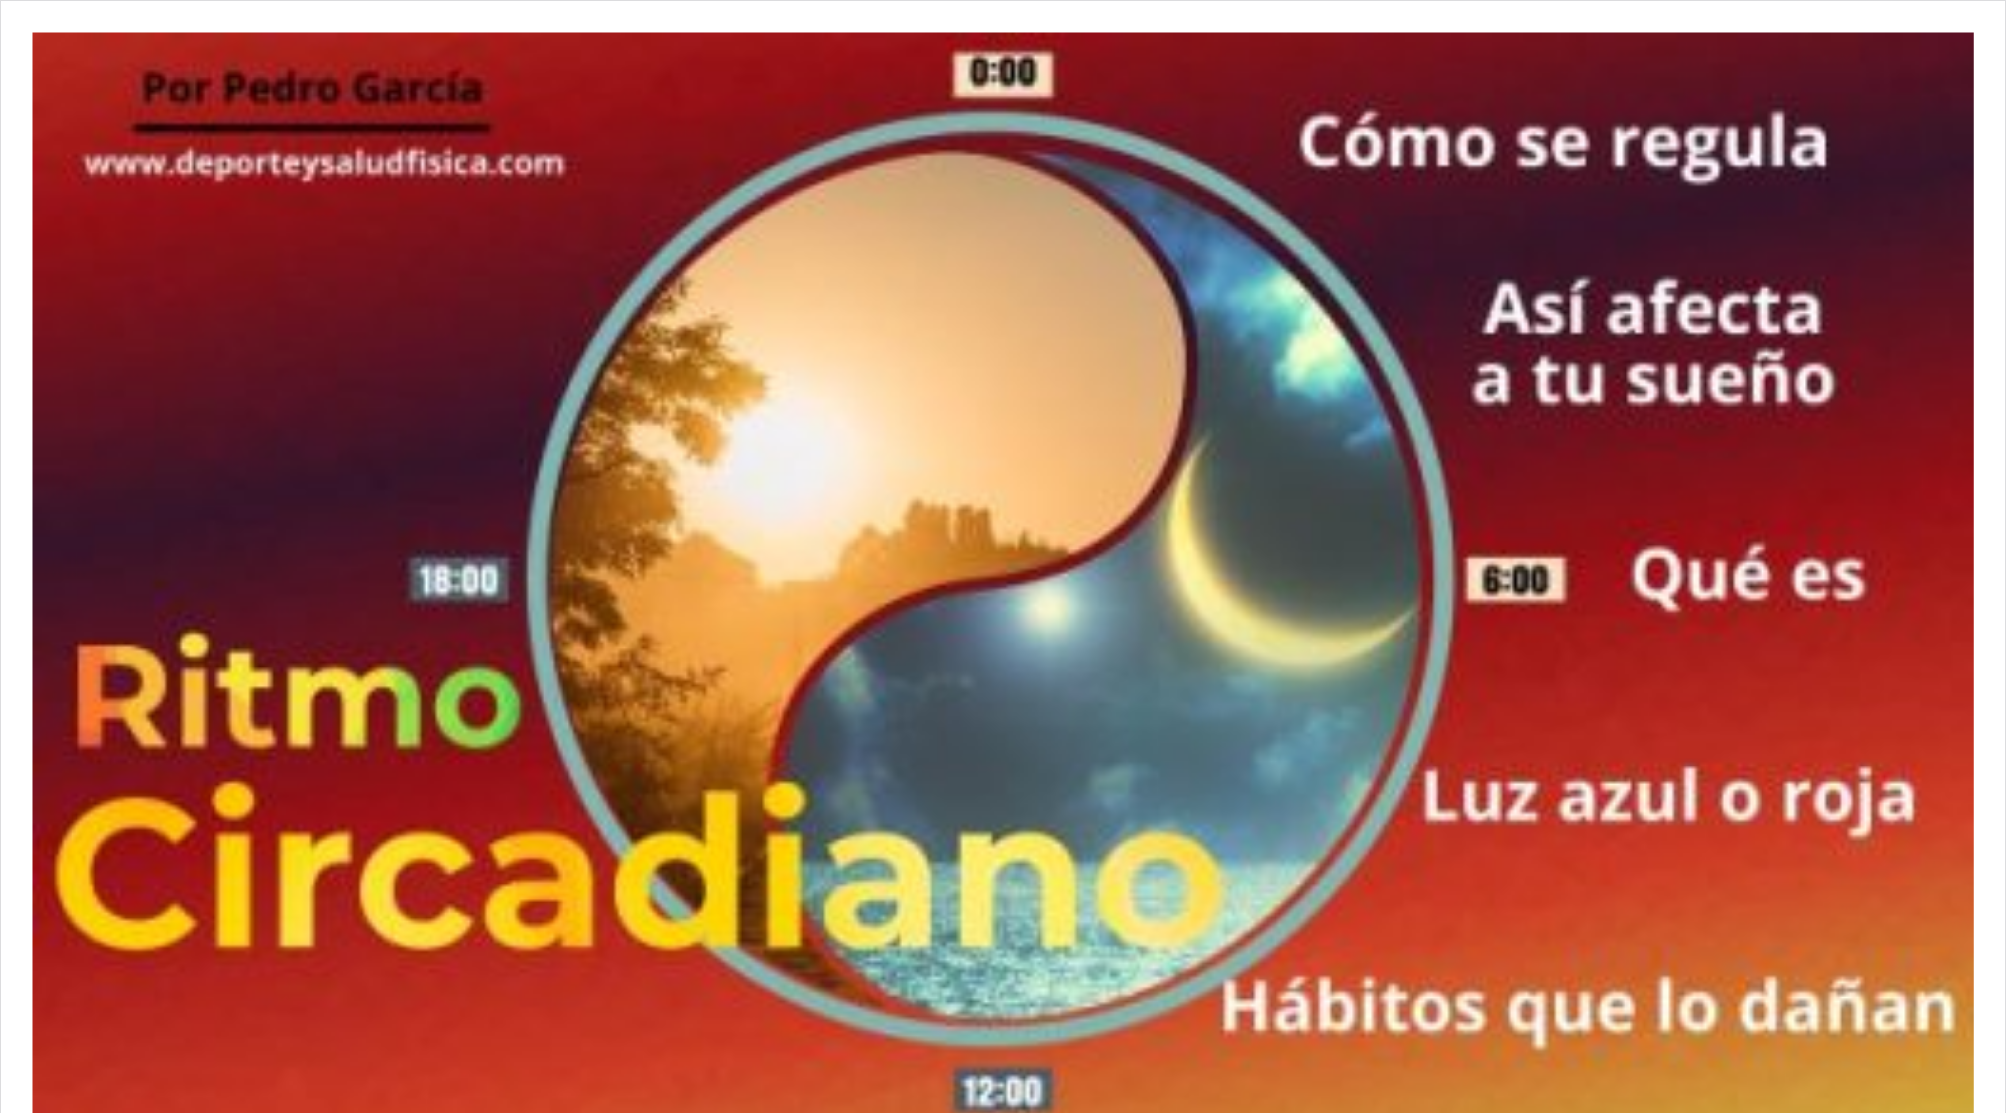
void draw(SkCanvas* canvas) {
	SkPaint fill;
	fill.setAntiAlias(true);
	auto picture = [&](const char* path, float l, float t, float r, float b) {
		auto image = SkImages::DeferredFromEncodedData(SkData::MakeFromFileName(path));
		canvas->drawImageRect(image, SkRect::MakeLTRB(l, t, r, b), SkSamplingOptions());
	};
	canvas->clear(0xFFFFFFFF);
	fill.setStyle(SkPaint::kStroke_Style);
	fill.setStrokeWidth(1);
	fill.setColor(0xFFDCDCDE);
	canvas->drawRect(SkRect::MakeLTRB(0.5f, 0.5f, 2005.5f, 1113.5f), fill);
	picture("image0.png", 32, 32, 1974, 1113);
}
